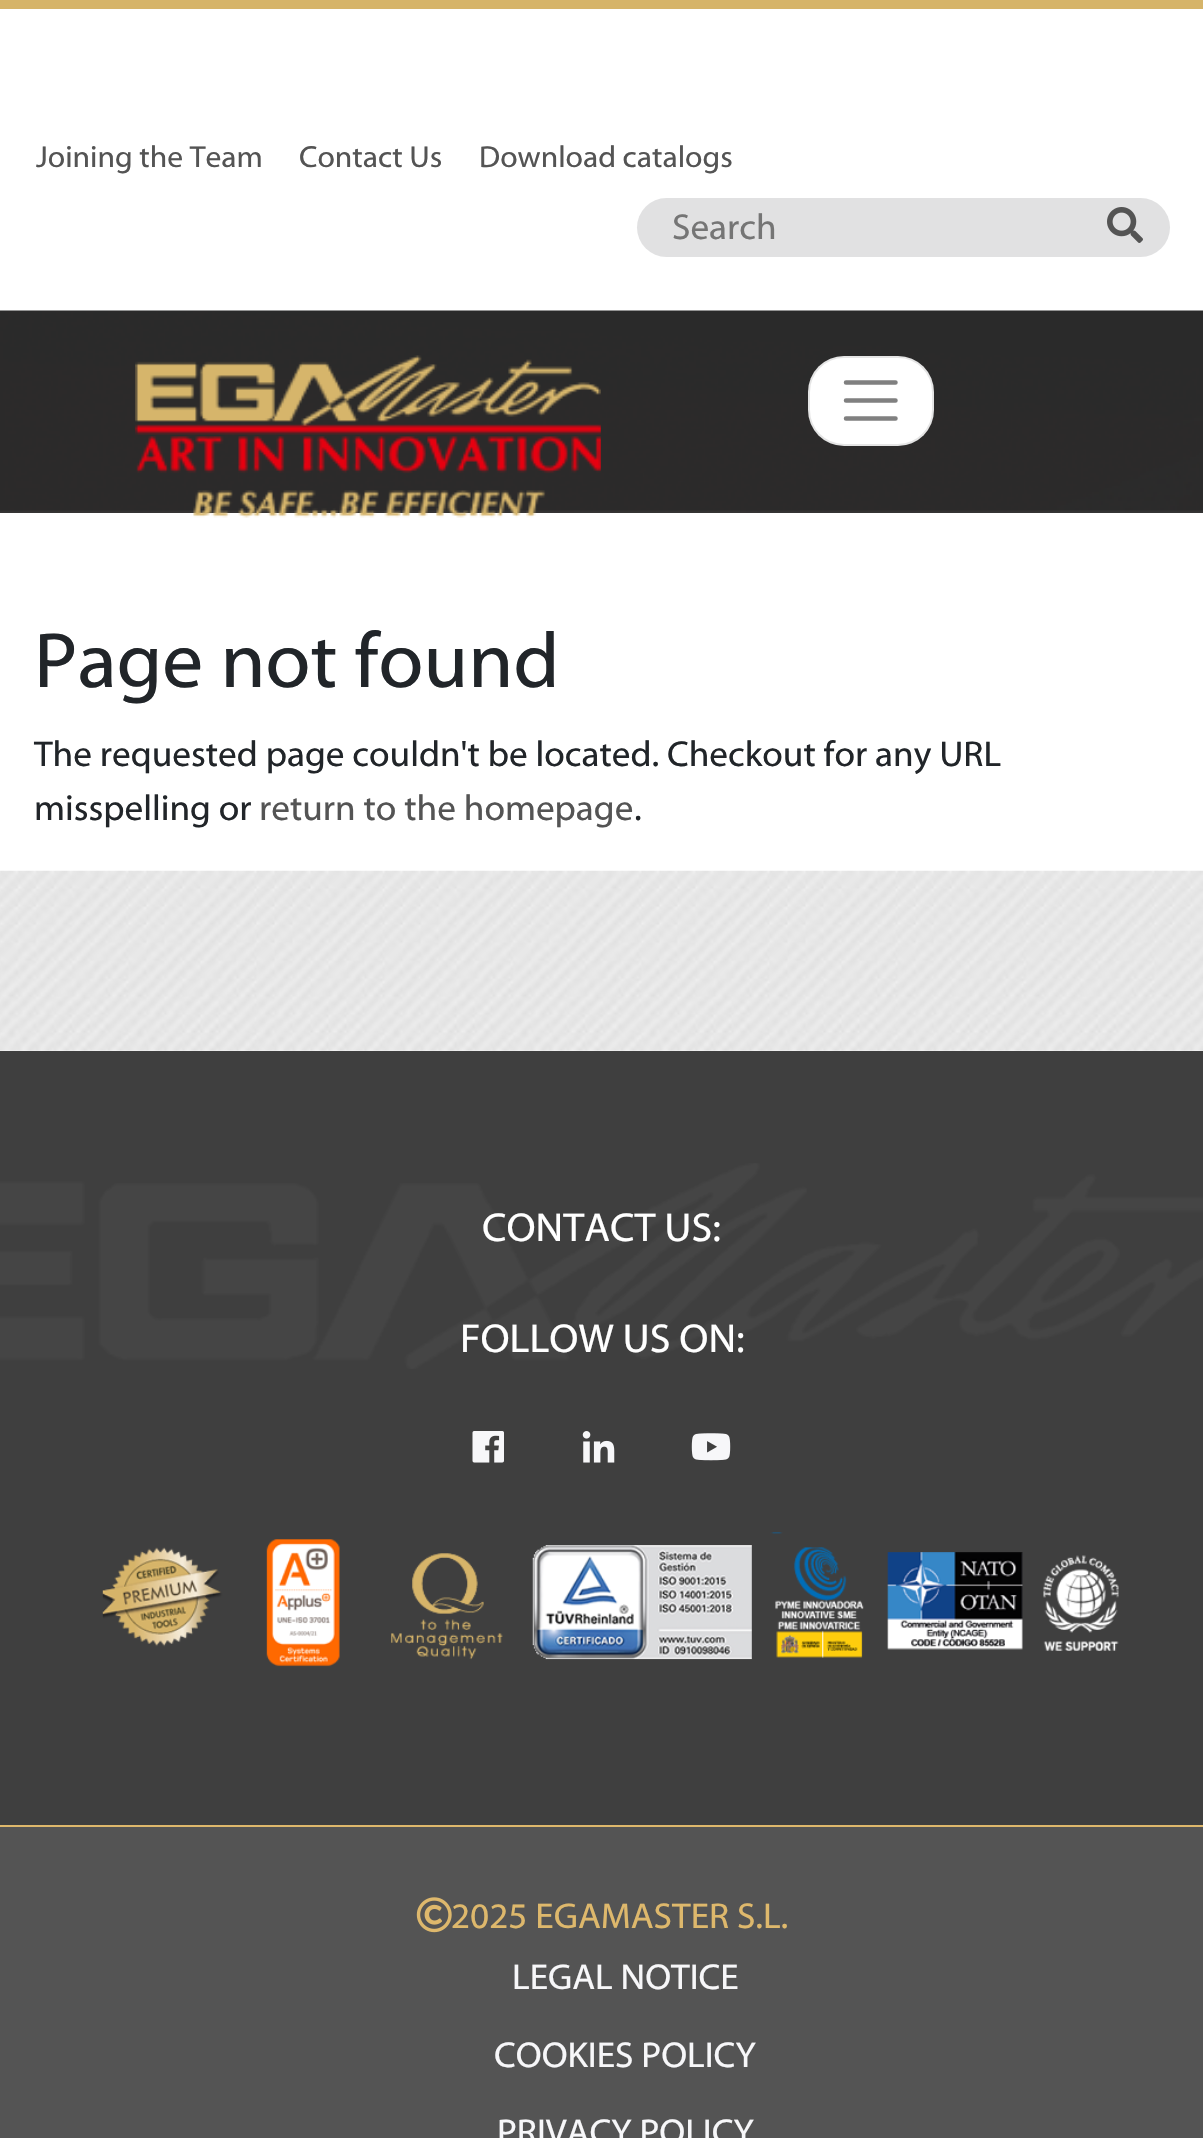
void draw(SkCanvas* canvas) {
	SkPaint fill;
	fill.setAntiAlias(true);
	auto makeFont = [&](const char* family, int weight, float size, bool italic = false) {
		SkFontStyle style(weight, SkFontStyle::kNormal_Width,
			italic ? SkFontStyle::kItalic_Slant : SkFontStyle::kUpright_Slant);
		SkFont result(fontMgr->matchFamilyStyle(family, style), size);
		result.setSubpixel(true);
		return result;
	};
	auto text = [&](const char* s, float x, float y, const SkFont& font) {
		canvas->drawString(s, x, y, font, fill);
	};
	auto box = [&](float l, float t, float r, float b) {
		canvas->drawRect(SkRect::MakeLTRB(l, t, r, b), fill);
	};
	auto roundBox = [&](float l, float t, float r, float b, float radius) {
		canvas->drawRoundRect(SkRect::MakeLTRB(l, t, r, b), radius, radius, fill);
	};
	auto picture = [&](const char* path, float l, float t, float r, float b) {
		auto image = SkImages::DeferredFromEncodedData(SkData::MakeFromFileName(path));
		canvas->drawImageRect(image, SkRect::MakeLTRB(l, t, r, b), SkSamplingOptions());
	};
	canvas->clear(0xFFFFFFFF);
	fill.setColor(0xFFD6B469);
	box(0, 0, 1203, 9);
	fill.setColor(0xFFE1E1E2);
	roundBox(637, 198, 1170, 257, 29.5f);
	picture("image0.png", 1107, 207, 1143, 243);
	picture("image1.png", 0, 310, 1203, 513);
	picture("image2.png", 135, 355, 601, 518);
	fill.setColor(0xFFFFFFFF);
	roundBox(808, 356, 934, 446, 36);
	fill.setStyle(SkPaint::kStroke_Style);
	fill.setStrokeWidth(2);
	fill.setColor(0x1A000000);
	canvas->drawRoundRect(SkRect::MakeLTRB(809, 357, 933, 445), 35, 35, fill);
	fill.setStrokeWidth(4.5f);
	fill.setStrokeCap(SkPaint::kRound_Cap);
	fill.setColor(0xFF808080);
	canvas->drawPath(SkPathBuilder().moveTo(846, 382.5f).lineTo(895.5f, 382.5f).moveTo(846, 400.5f).lineTo(895.5f, 400.5f).moveTo(846, 418.5f).lineTo(895.5f, 418.5f).detach(), fill);
	picture("image3.png", 0, 870, 1203, 1051);
	fill.setStyle(SkPaint::kFill_Style);
	fill.setColor(0xFF3F3F3F);
	box(0, 1051, 1203, 1825);
	picture("image4.png", 0, 1163, 1203, 1369);
	picture("image5.png", 472, 1431, 504, 1463);
	picture("image6.png", 582, 1431, 615, 1463);
	picture("image7.png", 691, 1433, 731, 1461);
	picture("image8.png", 102, 1532, 1119, 1667);
	fill.setColor(0xFF545454);
	box(0, 1827, 1203, 2138);
	fill.setColor(0xFFDEB86C);
	box(0, 1825, 1203, 1827);
	picture("image9.png", 416, 1897, 452, 1933);
	auto font1 = makeFont("Myriad", 400, 30.5f);
	fill.setColor(0xFF545454);
	text("Joining the Team", 36, 167, font1);
	text("Contact Us", 299, 167, font1);
	text("Download catalogs", 479, 167, font1);
	auto font2 = makeFont("Myriad", 400, 36);
	fill.setColor(0xFF757575);
	text("Search", 672, 239, font2);
	auto font3 = makeFont("Myriad", 400, 78.75f);
	fill.setColor(0xFF212529);
	text("Page not found", 34, 687, font3);
	text("The requested page couldn't be located. Checkout for any URL", 34, 766, font2);
	text("misspelling or", 34, 820, font2);
	fill.setColor(0xFF545454);
	text("return to the homepage", 259, 820, font2);
	fill.setColor(0xFF212529);
	text(".", 634, 820, font2);
	auto font4 = makeFont("Myriad", 400, 40.5f);
	fill.setColor(0xFFFFFFFF);
	text("CONTACT US:", 482, 1241, font4);
	text("FOLLOW US ON:", 460, 1352, font4);
	fill.setColor(0xFFDEB86C);
	text("2025 EGAMASTER S.L.", 451, 1928, font2);
	fill.setColor(0xFFF7F7F9);
	text("LEGAL NOTICE", 512, 1989, font2);
	text("COOKIES POLICY", 494, 2067, font2);
	text("PRIVACY POLICY", 497, 2144, font2);
}
